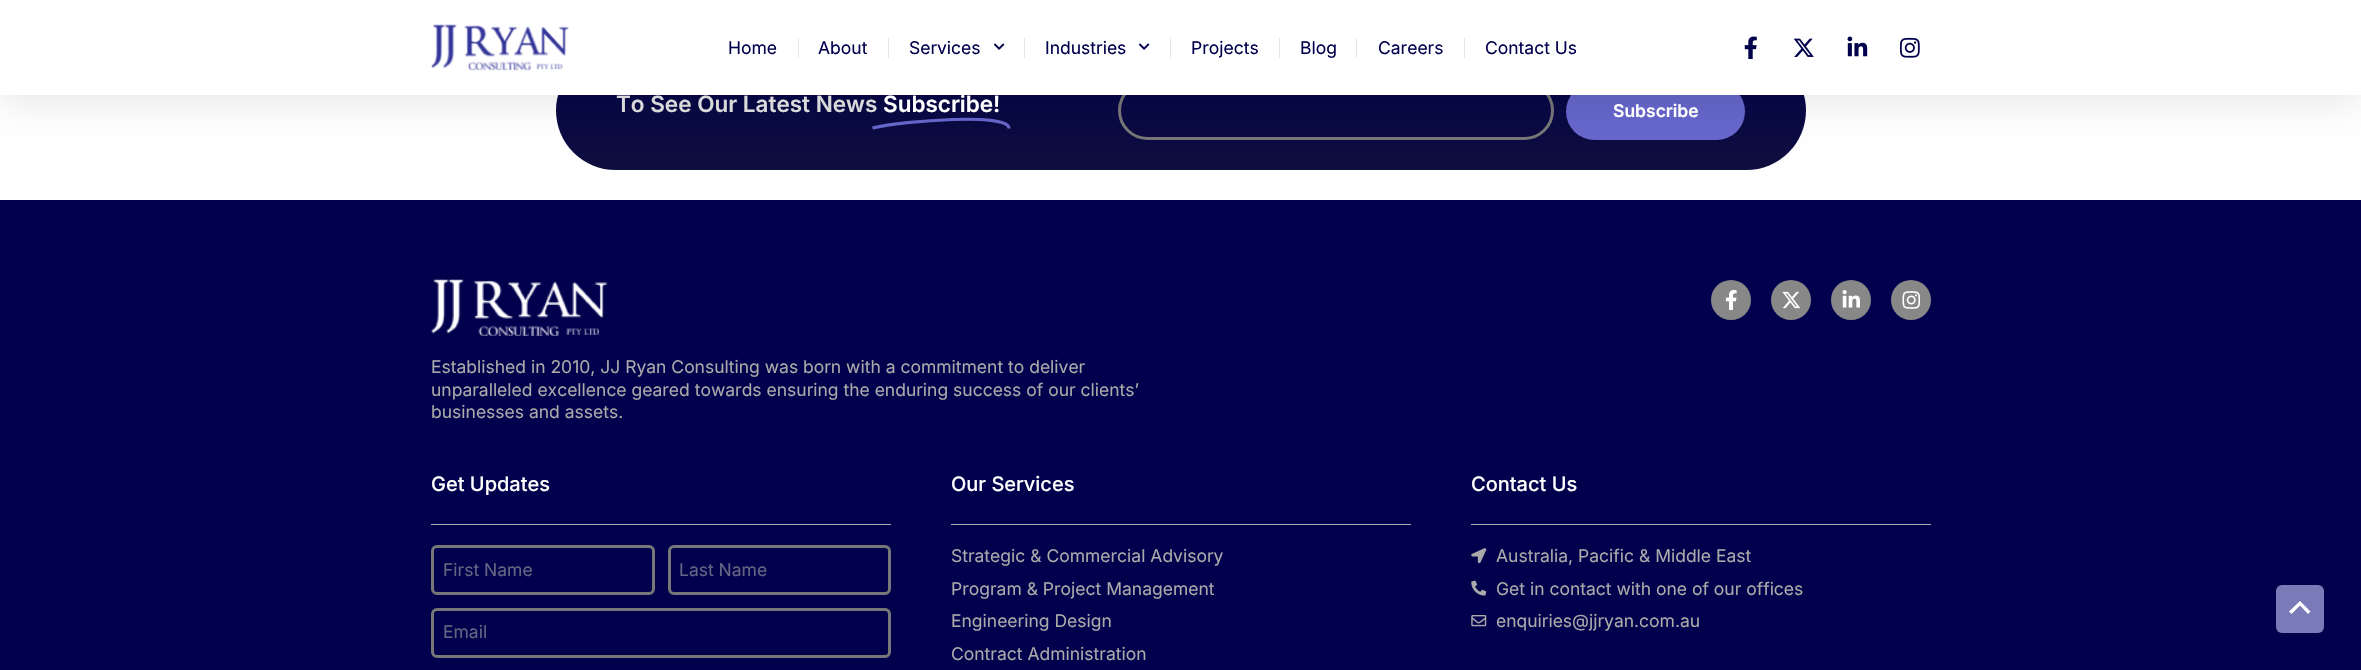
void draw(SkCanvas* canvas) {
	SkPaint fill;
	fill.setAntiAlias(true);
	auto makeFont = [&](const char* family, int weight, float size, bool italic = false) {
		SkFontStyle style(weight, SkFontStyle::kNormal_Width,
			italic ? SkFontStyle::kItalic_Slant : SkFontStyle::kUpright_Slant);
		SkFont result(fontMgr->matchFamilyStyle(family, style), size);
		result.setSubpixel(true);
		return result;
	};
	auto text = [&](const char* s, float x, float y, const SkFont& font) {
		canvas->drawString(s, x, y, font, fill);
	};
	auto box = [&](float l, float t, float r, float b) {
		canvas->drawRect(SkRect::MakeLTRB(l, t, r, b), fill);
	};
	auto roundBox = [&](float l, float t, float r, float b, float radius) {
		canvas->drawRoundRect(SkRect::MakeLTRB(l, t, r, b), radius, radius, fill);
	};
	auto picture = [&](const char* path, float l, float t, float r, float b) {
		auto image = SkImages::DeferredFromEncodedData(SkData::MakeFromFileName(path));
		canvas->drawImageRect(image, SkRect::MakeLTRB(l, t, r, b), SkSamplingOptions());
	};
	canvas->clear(0xFFFFFFFF);
	{
		const SkColor colors[] = {0xFF00004C, 0xFF0F0F3D};
		const float stops[] = {0, 1};
		const SkPoint ends[] = {{1181, 51}, {1181, 170}};
		fill.setShader(SkGradientShader::MakeLinear(ends, colors, stops, 2, SkTileMode::kClamp));
		fill.setAlpha(255);
	}
	roundBox(556, 51, 1806, 170, 59.5f);
	fill.setStyle(SkPaint::kStroke_Style);
	fill.setStrokeWidth(3.1f);
	fill.setShader(nullptr);
	fill.setColor(0xFF6666CC);
	canvas->drawPath(SkPathBuilder().moveTo(872.5f, 128).cubicTo(904.5f, 120.5f, 1009.5f, 112.5f, 1009, 128.5f).detach(), fill);
	fill.setStrokeWidth(3);
	fill.setColor(0xFF777777);
	canvas->drawRoundRect(SkRect::MakeLTRB(1119.5f, 82.5f, 1552.5f, 138.5f), 28, 28, fill);
	fill.setStyle(SkPaint::kFill_Style);
	fill.setColor(0xFF6666CC);
	roundBox(1566, 83, 1745, 140, 28.5f);
	fill.setColor(0x1A000000);
	fill.setMaskFilter(SkMaskFilter::MakeBlur(kNormal_SkBlurStyle, 19));
	canvas->drawRect(SkRect::MakeLTRB(0, 6, 2361, 101), fill);
	fill.setMaskFilter(nullptr);
	fill.setColor(0xFFFFFFFF);
	box(0, 0, 2361, 95);
	picture("image0.png", 431, 24, 569, 71);
	fill.setColor(0xFFE6E6E6);
	box(798, 38, 799, 58);
	box(888, 38, 889, 58);
	picture("image1.png", 993, 43, 1005, 50);
	box(1024, 38, 1025, 58);
	picture("image1.png", 1138, 43, 1150, 50);
	box(1170, 38, 1171, 58);
	box(1279, 38, 1280, 58);
	box(1356, 38, 1357, 58);
	box(1464, 38, 1465, 58);
	picture("image2.png", 1744, 36, 1757, 59);
	picture("image3.png", 1793, 38, 1814, 57);
	picture("image4.png", 1847, 36, 1868, 57);
	picture("image5.png", 1900, 37, 1920, 58);
	fill.setColor(0xFF00004C);
	box(0, 200, 2361, 670);
	fill.setColor(0xFF888888);
	canvas->drawCircle(1731, 300, 20, fill);
	picture("image6.png", 1725, 290, 1737, 310);
	canvas->drawCircle(1791, 300, 20, fill);
	picture("image7.png", 1782, 291, 1800, 309);
	canvas->drawCircle(1851, 300, 20, fill);
	picture("image8.png", 1842, 290, 1860, 308);
	canvas->drawCircle(1911, 300, 20, fill);
	picture("image9.png", 1902, 291, 1920, 309);
	picture("image10.png", 431, 279, 608, 336);
	fill.setColor(0xFFAAAAAA);
	box(431, 524, 891, 525);
	fill.setStyle(SkPaint::kStroke_Style);
	fill.setColor(0xFF777777);
	canvas->drawRoundRect(SkRect::MakeLTRB(432.5f, 546.5f, 653.5f, 593.5f), 4.5f, 4.5f, fill);
	canvas->drawRoundRect(SkRect::MakeLTRB(669.5f, 546.5f, 889.5f, 593.5f), 4.5f, 4.5f, fill);
	canvas->drawRoundRect(SkRect::MakeLTRB(432.5f, 609.5f, 889.5f, 656.5f), 4.5f, 4.5f, fill);
	fill.setStyle(SkPaint::kFill_Style);
	fill.setColor(0xFFAAAAAA);
	box(951, 524, 1411, 525);
	box(1471, 524, 1931, 525);
	picture("image11.png", 1471, 548, 1487, 564);
	picture("image12.png", 1471, 580, 1487, 596);
	picture("image13.png", 1471, 615, 1487, 627);
	fill.setColor(0xFF7A7AB8);
	roundBox(2276, 585, 2324, 633, 6);
	fill.setColor(0xFFFFFFFF);
	canvas->drawPath(SkPathBuilder().moveTo(2310.5f, 611.5f).lineTo(2300, 601).lineTo(2289, 611.5f).lineTo(2291.5f, 614).lineTo(2300, 605.5f).lineTo(2308, 614).close().detach(), fill);
	auto font1 = makeFont("Inter", 400, 17.5f);
	fill.setColor(0xFF00004C);
	text("Home", 728, 54, font1);
	text("About", 818, 54, font1);
	text("Services", 909, 54, font1);
	text("Industries", 1045, 54, font1);
	text("Projects", 1191, 54, font1);
	text("Blog", 1300, 54, font1);
	text("Careers", 1378, 54, font1);
	text("Contact Us", 1485, 54, font1);
	auto font2 = makeFont("Inter", 600, 22.5f);
	fill.setColor(0xFFD9D9D9);
	text("To See Our Latest News", 616, 112, font2);
	fill.setColor(0xFFFFFFFF);
	text("Subscribe!", 883, 112, font2);
	auto font3 = makeFont("Inter", 600, 17.5f);
	text("Subscribe", 1613, 117, font3);
	fill.setColor(0xFFAAAAAA);
	text("Established in 2010, JJ Ryan Consulting was born with a commitment to deliver", 431, 373, font1);
	text("unparalleled excellence geared towards ensuring the enduring success of our clients’", 431, 396, font1);
	text("businesses and assets.", 431, 418, font1);
	auto font4 = makeFont("Inter", 500, 20);
	fill.setColor(0xFFFFFFFF);
	text("Get Updates", 431, 491, font4);
	fill.setColor(0xFF666684);
	text("First Name", 443, 576, font1);
	text("Last Name", 679, 576, font1);
	text("Email", 443, 638, font1);
	fill.setColor(0xFFFFFFFF);
	text("Our Services", 951, 491, font4);
	fill.setColor(0xFFAAAAAA);
	text("Strategic & Commercial Advisory", 951, 562, font1);
	text("Program & Project Management", 951, 595, font1);
	text("Engineering Design", 951, 627, font1);
	text("Contract Administration", 951, 660, font1);
	fill.setColor(0xFFFFFFFF);
	text("Contact Us", 1471, 491, font4);
	fill.setColor(0xFFAAAAAA);
	text("Australia, Pacific & Middle East", 1496, 562, font1);
	text("Get in contact with one of our offices", 1496, 595, font1);
	text("enquiries@jjryan.com.au", 1496, 627, font1);
}
